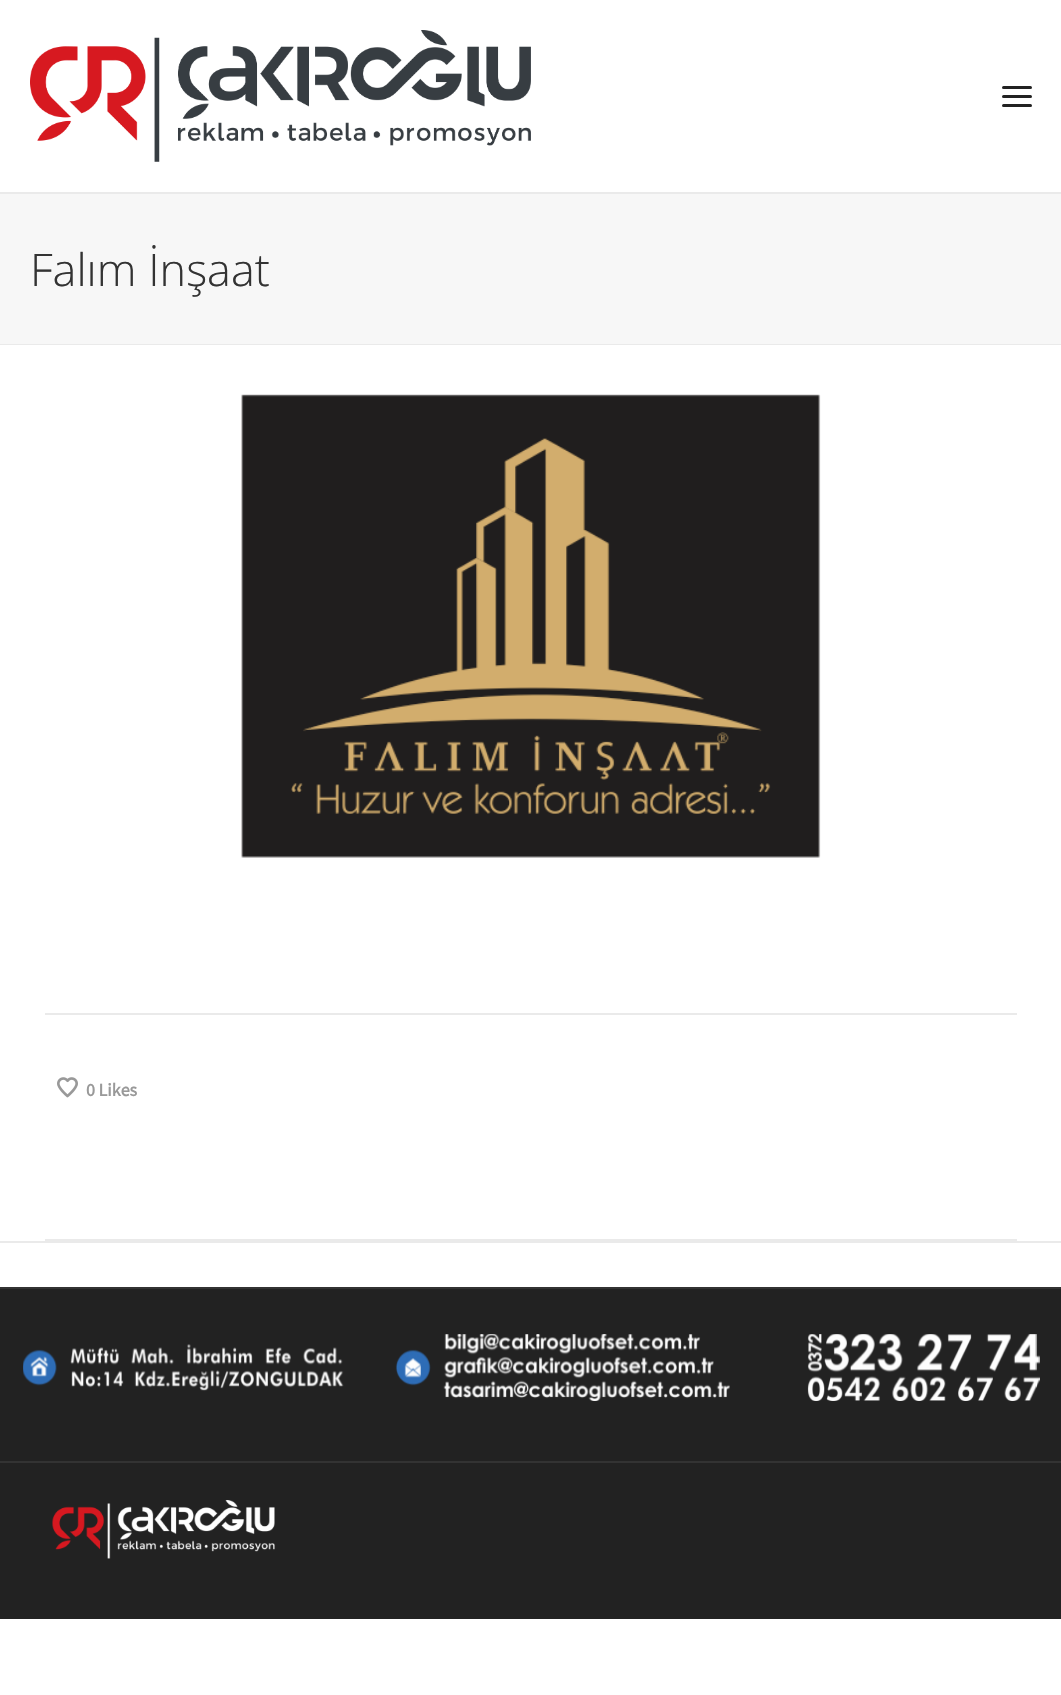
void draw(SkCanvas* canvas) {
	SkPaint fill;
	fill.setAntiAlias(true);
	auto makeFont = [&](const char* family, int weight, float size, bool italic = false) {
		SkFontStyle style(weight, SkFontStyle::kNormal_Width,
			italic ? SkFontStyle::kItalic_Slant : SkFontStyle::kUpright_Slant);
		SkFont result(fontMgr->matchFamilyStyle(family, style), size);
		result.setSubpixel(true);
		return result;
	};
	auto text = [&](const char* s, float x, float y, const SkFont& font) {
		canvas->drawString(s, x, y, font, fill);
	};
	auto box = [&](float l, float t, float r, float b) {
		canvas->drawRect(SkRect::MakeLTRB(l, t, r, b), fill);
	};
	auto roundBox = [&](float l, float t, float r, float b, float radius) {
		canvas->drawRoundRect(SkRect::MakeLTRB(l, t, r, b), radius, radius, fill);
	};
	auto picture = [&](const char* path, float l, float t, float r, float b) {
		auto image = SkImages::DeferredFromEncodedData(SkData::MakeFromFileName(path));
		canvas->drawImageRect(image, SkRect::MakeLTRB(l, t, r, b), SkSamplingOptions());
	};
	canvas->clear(0xFFFFFFFF);
	fill.setColor(0xFFEAEAEA);
	box(0, 192, 1061, 194);
	picture("image0.png", 30, 30, 531, 162);
	fill.setColor(0xFF222222);
	roundBox(1002, 95, 1032, 98, 1.5f);
	roundBox(1002, 86, 1032, 89, 1.5f);
	roundBox(1002, 104, 1032, 107, 1.5f);
	fill.setColor(0xFFF7F7F7);
	box(0, 194, 1061, 344);
	fill.setColor(0xFFEAEAEA);
	box(0, 344, 1061, 345);
	picture("image1.png", 241, 394, 821, 858);
	box(45, 1013, 1017, 1015);
	box(45, 1239, 1017, 1241);
	picture("image2.png", 57, 1077, 78, 1098);
	box(0, 1241, 1061, 1243);
	fill.setColor(0xFF222222);
	box(0, 1289, 1061, 1461);
	fill.setColor(0xFF333333);
	box(0, 1287, 1061, 1289);
	picture("image3.png", 23, 1334, 1040, 1401);
	fill.setColor(0xFF222222);
	box(0, 1463, 1061, 1619);
	fill.setColor(0xFF333333);
	box(0, 1461, 1061, 1463);
	picture("image4.png", 52, 1500, 275, 1559);
	auto font1 = makeFont("Open Sans", 300, 45);
	text("Falım İnşaat", 30, 286, font1);
	auto font2 = makeFont("Source Sans Pro", 700, 18);
	fill.setColor(0xFF999999);
	text("0 Likes", 86, 1096, font2);
}
